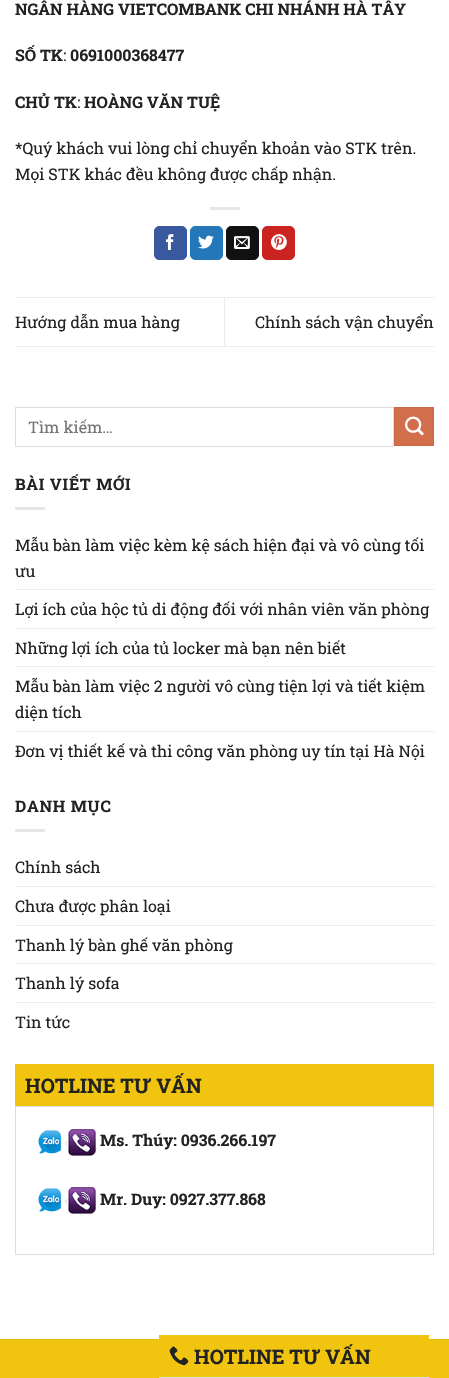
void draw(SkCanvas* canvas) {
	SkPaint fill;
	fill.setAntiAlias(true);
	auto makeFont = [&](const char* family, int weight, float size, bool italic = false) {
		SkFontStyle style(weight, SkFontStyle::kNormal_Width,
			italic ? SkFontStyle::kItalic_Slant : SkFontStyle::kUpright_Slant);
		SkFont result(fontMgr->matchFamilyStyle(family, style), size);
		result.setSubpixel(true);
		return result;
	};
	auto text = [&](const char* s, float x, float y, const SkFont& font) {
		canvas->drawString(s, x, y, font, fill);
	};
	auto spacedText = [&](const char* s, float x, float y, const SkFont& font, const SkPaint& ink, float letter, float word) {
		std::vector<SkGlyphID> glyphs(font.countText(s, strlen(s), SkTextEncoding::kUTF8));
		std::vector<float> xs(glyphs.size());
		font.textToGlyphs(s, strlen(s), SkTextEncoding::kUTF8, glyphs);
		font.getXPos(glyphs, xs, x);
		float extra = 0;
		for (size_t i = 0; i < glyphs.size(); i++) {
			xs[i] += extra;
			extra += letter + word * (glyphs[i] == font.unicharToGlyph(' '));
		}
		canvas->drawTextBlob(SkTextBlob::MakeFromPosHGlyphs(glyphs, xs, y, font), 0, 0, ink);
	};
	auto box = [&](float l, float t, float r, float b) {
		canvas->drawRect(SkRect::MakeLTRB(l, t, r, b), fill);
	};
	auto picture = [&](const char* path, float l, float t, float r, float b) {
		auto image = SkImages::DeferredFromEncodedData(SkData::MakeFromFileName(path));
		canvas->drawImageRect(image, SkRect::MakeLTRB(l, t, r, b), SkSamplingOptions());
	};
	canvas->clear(0xFFFFFFFF);
	fill.setColor(0xFFE6E6E6);
	box(210, 207, 240, 210);
	fill.setColor(0xFF3A589D);
	canvas->drawRoundRect(SkRect::MakeLTRB(154.5f, 226.5f, 186.5f, 259.5f), 4.5f, 4.5f, fill);
	fill.setStyle(SkPaint::kStroke_Style);
	fill.setStrokeWidth(1);
	canvas->drawRoundRect(SkRect::MakeLTRB(154.5f, 226.5f, 186.5f, 259.5f), 4.5f, 4.5f, fill);
	picture("image0.png", 165, 234, 174, 250);
	fill.setStyle(SkPaint::kFill_Style);
	fill.setColor(0xFF2478BA);
	canvas->drawRoundRect(SkRect::MakeLTRB(190.5f, 226.5f, 222.5f, 259.5f), 4.5f, 4.5f, fill);
	fill.setStyle(SkPaint::kStroke_Style);
	canvas->drawRoundRect(SkRect::MakeLTRB(190.5f, 226.5f, 222.5f, 259.5f), 4.5f, 4.5f, fill);
	picture("image1.png", 198, 235, 214, 249);
	fill.setStyle(SkPaint::kFill_Style);
	fill.setColor(0xFF111111);
	canvas->drawRoundRect(SkRect::MakeLTRB(226.5f, 226.5f, 258.5f, 259.5f), 4.5f, 4.5f, fill);
	fill.setStyle(SkPaint::kStroke_Style);
	canvas->drawRoundRect(SkRect::MakeLTRB(226.5f, 226.5f, 258.5f, 259.5f), 4.5f, 4.5f, fill);
	picture("image2.png", 234, 236, 250, 249);
	fill.setStyle(SkPaint::kFill_Style);
	fill.setColor(0xFFCB2320);
	canvas->drawRoundRect(SkRect::MakeLTRB(262.5f, 226.5f, 294.5f, 259.5f), 4.5f, 4.5f, fill);
	fill.setStyle(SkPaint::kStroke_Style);
	canvas->drawRoundRect(SkRect::MakeLTRB(262.5f, 226.5f, 294.5f, 259.5f), 4.5f, 4.5f, fill);
	picture("image3.png", 271, 234, 287, 250);
	fill.setStyle(SkPaint::kFill_Style);
	fill.setColor(0xFFECECEC);
	box(15, 297, 434, 298);
	box(15, 346, 434, 347);
	box(224, 298, 225, 346);
	fill.setStyle(SkPaint::kStroke_Style);
	fill.setColor(0xFFDDDDDD);
	canvas->drawRect(SkRect::MakeLTRB(15.5f, 407.5f, 393.5f, 446.5f), fill);
	fill.setStyle(SkPaint::kFill_Style);
	fill.setColor(0xFFD26E4B);
	canvas->drawRect(SkRect::MakeLTRB(394.5f, 407.5f, 433.5f, 445.5f), fill);
	fill.setStyle(SkPaint::kStroke_Style);
	fill.setColor(0xFFC86947);
	canvas->drawRect(SkRect::MakeLTRB(394.5f, 407.5f, 433.5f, 445.5f), fill);
	picture("image4.png", 405, 416, 424, 436);
	fill.setStyle(SkPaint::kFill_Style);
	fill.setColor(0xFFE6E6E6);
	box(15, 507, 45, 510);
	fill.setColor(0xFFECECEC);
	box(15, 589, 434, 590);
	box(15, 628, 434, 629);
	box(15, 666, 434, 667);
	box(15, 731, 434, 732);
	fill.setColor(0xFFE6E6E6);
	box(15, 829, 45, 832);
	fill.setColor(0xFFECECEC);
	box(15, 886, 434, 887);
	box(15, 925, 434, 926);
	box(15, 963, 434, 964);
	box(15, 1002, 434, 1003);
	fill.setColor(0xFFF1C40F);
	box(15, 1064, 434, 1106);
	fill.setStyle(SkPaint::kStroke_Style);
	fill.setColor(0xFFDDDDDD);
	canvas->drawRect(SkRect::MakeLTRB(15.5f, 1106.5f, 433.5f, 1254.5f), fill);
	picture("image5.png", 38, 1129, 96, 1156);
	picture("image5.png", 38, 1187, 96, 1214);
	fill.setStyle(SkPaint::kFill_Style);
	fill.setColor(0xFFF1C40F);
	box(0, 1340, 449, 1378);
	fill.setColor(0xFFE5BA0E);
	box(0, 1339, 449, 1340);
	fill.setColor(0xFFF1C40F);
	box(159, 1335, 429, 1340);
	picture("image6.png", 169, 1346, 189, 1366);
	fill.setStyle(SkPaint::kStroke_Style);
	fill.setStrokeWidth(2);
	fill.setColor(0xFFDDDDDD);
	canvas->drawRect(SkRect::MakeLTRB(160, 1378, 428, 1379), fill);
	auto font1 = makeFont("Roboto Slab", 700, 16);
	fill.setStyle(SkPaint::kFill_Style);
	fill.setColor(0xFF222222);
	text("NGÂN HÀNG VIETCOMBANK CHI NHÁNH HÀ TÂY", 15, 15, font1);
	text("SỐ TK", 15, 61, font1);
	auto font2 = makeFont("Roboto Slab", 400, 16);
	text(":", 63, 61, font2);
	text("0691000368477", 70, 61, font1);
	text("CHỦ TK", 15, 108, font1);
	text(":", 77, 108, font2);
	text("HOÀNG VĂN TUỆ", 84, 108, font1);
	text("*Quý khách vui lòng chỉ chuyển khoản vào STK trên.", 15, 154, font2);
	text("Mọi STK khác đều không được chấp nhận.", 15, 180, font2);
	text("Hướng dẫn mua hàng", 15, 328, font2);
	text("Chính sách vận chuyển", 255, 328, font2);
	fill.setColor(0xFF757575);
	text("Tìm kiếm…", 28, 433, font2);
	fill.setColor(0xFF222222);
	spacedText("BÀI VIẾT MỚI", 15, 490, font1, fill, 0.75f, 0);
	text("Mẫu bàn làm việc kèm kệ sách hiện đại và vô cùng tối", 15, 551, font2);
	text("ưu", 15, 577, font2);
	text("Lợi ích của hộc tủ di động đối với nhân viên văn phòng", 15, 615, font2);
	text("Những lợi ích của tủ locker mà bạn nên biết", 15, 654, font2);
	text("Mẫu bàn làm việc 2 người vô cùng tiện lợi và tiết kiệm", 15, 692, font2);
	text("diện tích", 15, 718, font2);
	text("Đơn vị thiết kế và thi công văn phòng uy tín tại Hà Nội", 15, 757, font2);
	spacedText("DANH MỤC", 15, 812, font1, fill, 0.75f, 0);
	text("Chính sách", 15, 873, font2);
	text("Chưa được phân loại", 15, 912, font2);
	text("Thanh lý bàn ghế văn phòng", 15, 951, font2);
	text("Thanh lý sofa", 15, 989, font2);
	text("Tin tức", 15, 1028, font2);
	auto font3 = makeFont("Roboto Slab", 700, 20);
	text("HOTLINE TƯ VẤN", 25, 1093, font3);
	text("Ms. Thúy: 0936.266.197", 100, 1146, font1);
	text("Mr. Duy: 0927.377.868", 100, 1205, font1);
	text("HOTLINE TƯ VẤN", 194, 1364, font3);
}
